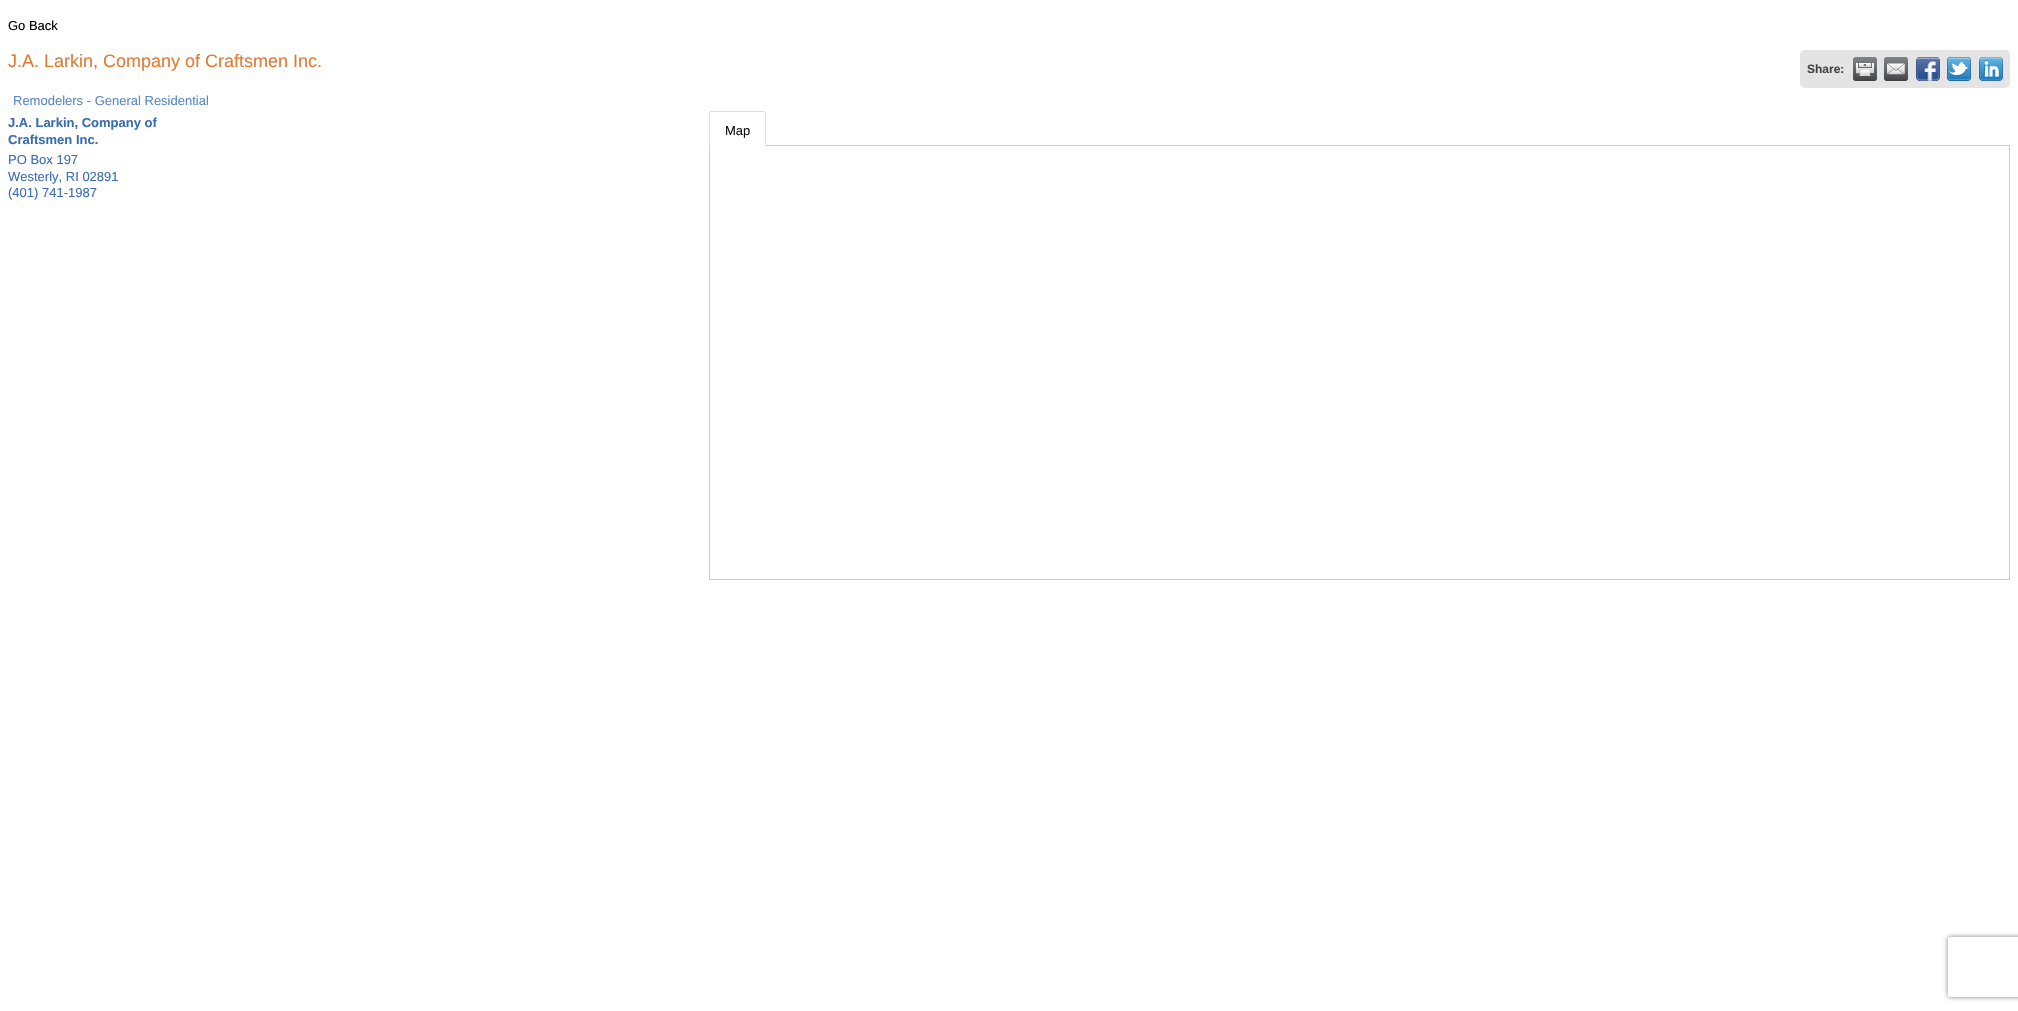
void draw(SkCanvas* canvas) {
	SkPaint fill;
	fill.setAntiAlias(true);
	auto makeFont = [&](const char* family, int weight, float size, bool italic = false) {
		SkFontStyle style(weight, SkFontStyle::kNormal_Width,
			italic ? SkFontStyle::kItalic_Slant : SkFontStyle::kUpright_Slant);
		SkFont result(fontMgr->matchFamilyStyle(family, style), size);
		result.setSubpixel(true);
		return result;
	};
	auto text = [&](const char* s, float x, float y, const SkFont& font) {
		canvas->drawString(s, x, y, font, fill);
	};
	auto box = [&](float l, float t, float r, float b) {
		canvas->drawRect(SkRect::MakeLTRB(l, t, r, b), fill);
	};
	auto roundBox = [&](float l, float t, float r, float b, float radius) {
		canvas->drawRoundRect(SkRect::MakeLTRB(l, t, r, b), radius, radius, fill);
	};
	auto picture = [&](const char* path, float l, float t, float r, float b) {
		auto image = SkImages::DeferredFromEncodedData(SkData::MakeFromFileName(path));
		canvas->drawImageRect(image, SkRect::MakeLTRB(l, t, r, b), SkSamplingOptions());
	};
	canvas->clear(0xFFFFFFFF);
	fill.setColor(0xFFE4E4E4);
	roundBox(1800, 50, 2010, 88, 5);
	picture("image0.png", 1853, 57, 1877, 81);
	picture("image1.png", 1884, 57, 1908, 81);
	picture("image2.png", 1916, 57, 1940, 81);
	picture("image3.png", 1947, 57, 1971, 81);
	picture("image4.png", 1979, 57, 2003, 81);
	fill.setStyle(SkPaint::kStroke_Style);
	fill.setStrokeWidth(1);
	fill.setColor(0xFFCCCCCC);
	canvas->drawRect(SkRect::MakeLTRB(709.5f, 145.5f, 2009.5f, 579.5f), fill);
	fill.setStyle(SkPaint::kFill_Style);
	fill.setColor(0xFFFFFFFF);
	canvas->drawPath(SkPathBuilder().moveTo(711, 112).lineTo(764, 112).cubicTo(764.5f, 112, 765, 112.5f, 765, 113).lineTo(765, 146).lineTo(710, 146).lineTo(710, 113).cubicTo(710, 112.5f, 710.5f, 112, 711, 112).close().detach(), fill);
	fill.setColor(0xFFDDDDDD);
	box(710, 111, 765, 112);
	box(765, 112, 766, 146);
	box(709, 112, 710, 146);
	canvas->save();
	canvas->clipPath(SkPathBuilder(SkPathFillType::kEvenOdd).moveTo(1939, 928).lineTo(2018, 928).lineTo(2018, 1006).lineTo(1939, 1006).close().moveTo(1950, 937).lineTo(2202, 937).cubicTo(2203, 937, 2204, 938, 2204, 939).lineTo(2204, 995).cubicTo(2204, 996, 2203, 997, 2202, 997).lineTo(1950, 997).cubicTo(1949, 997, 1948, 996, 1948, 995).lineTo(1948, 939).cubicTo(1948, 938, 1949, 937, 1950, 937).close().detach(), true);
	fill.setColor(0xFF808080);
	fill.setMaskFilter(SkMaskFilter::MakeBlur(kNormal_SkBlurStyle, 2.5f));
	canvas->drawRoundRect(SkRect::MakeLTRB(1948, 937, 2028, 997), 2, 2, fill);
	fill.setMaskFilter(nullptr);
	canvas->restore();
	auto font1 = makeFont("Liberation Sans", 400, 13);
	fill.setColor(0xFF000000);
	text("Go Back", 8, 30, font1);
	auto font2 = makeFont("Liberation Sans", 400, 18);
	fill.setColor(0xFFE17B35);
	text("J.A. Larkin, Company of Craftsmen Inc.", 8, 67, font2);
	auto font3 = makeFont("Liberation Sans", 700, 12);
	fill.setColor(0xFF444444);
	text("Share:", 1807, 73, font3);
	fill.setColor(0xFF5886C8);
	text("Remodelers - General Residential", 13, 105, font1);
	auto font4 = makeFont("Liberation Sans", 700, 13);
	fill.setColor(0xFF3B6CB2);
	text("J.A. Larkin, Company of", 8, 127, font4);
	text("Craftsmen Inc.", 8, 144, font4);
	text("PO Box 197", 8, 164, font1);
	text("Westerly, RI 02891", 8, 181, font1);
	text("(401) 741-1987", 8, 197, font1);
	fill.setColor(0xFF111111);
	text("Map", 725, 135, font1);
}
